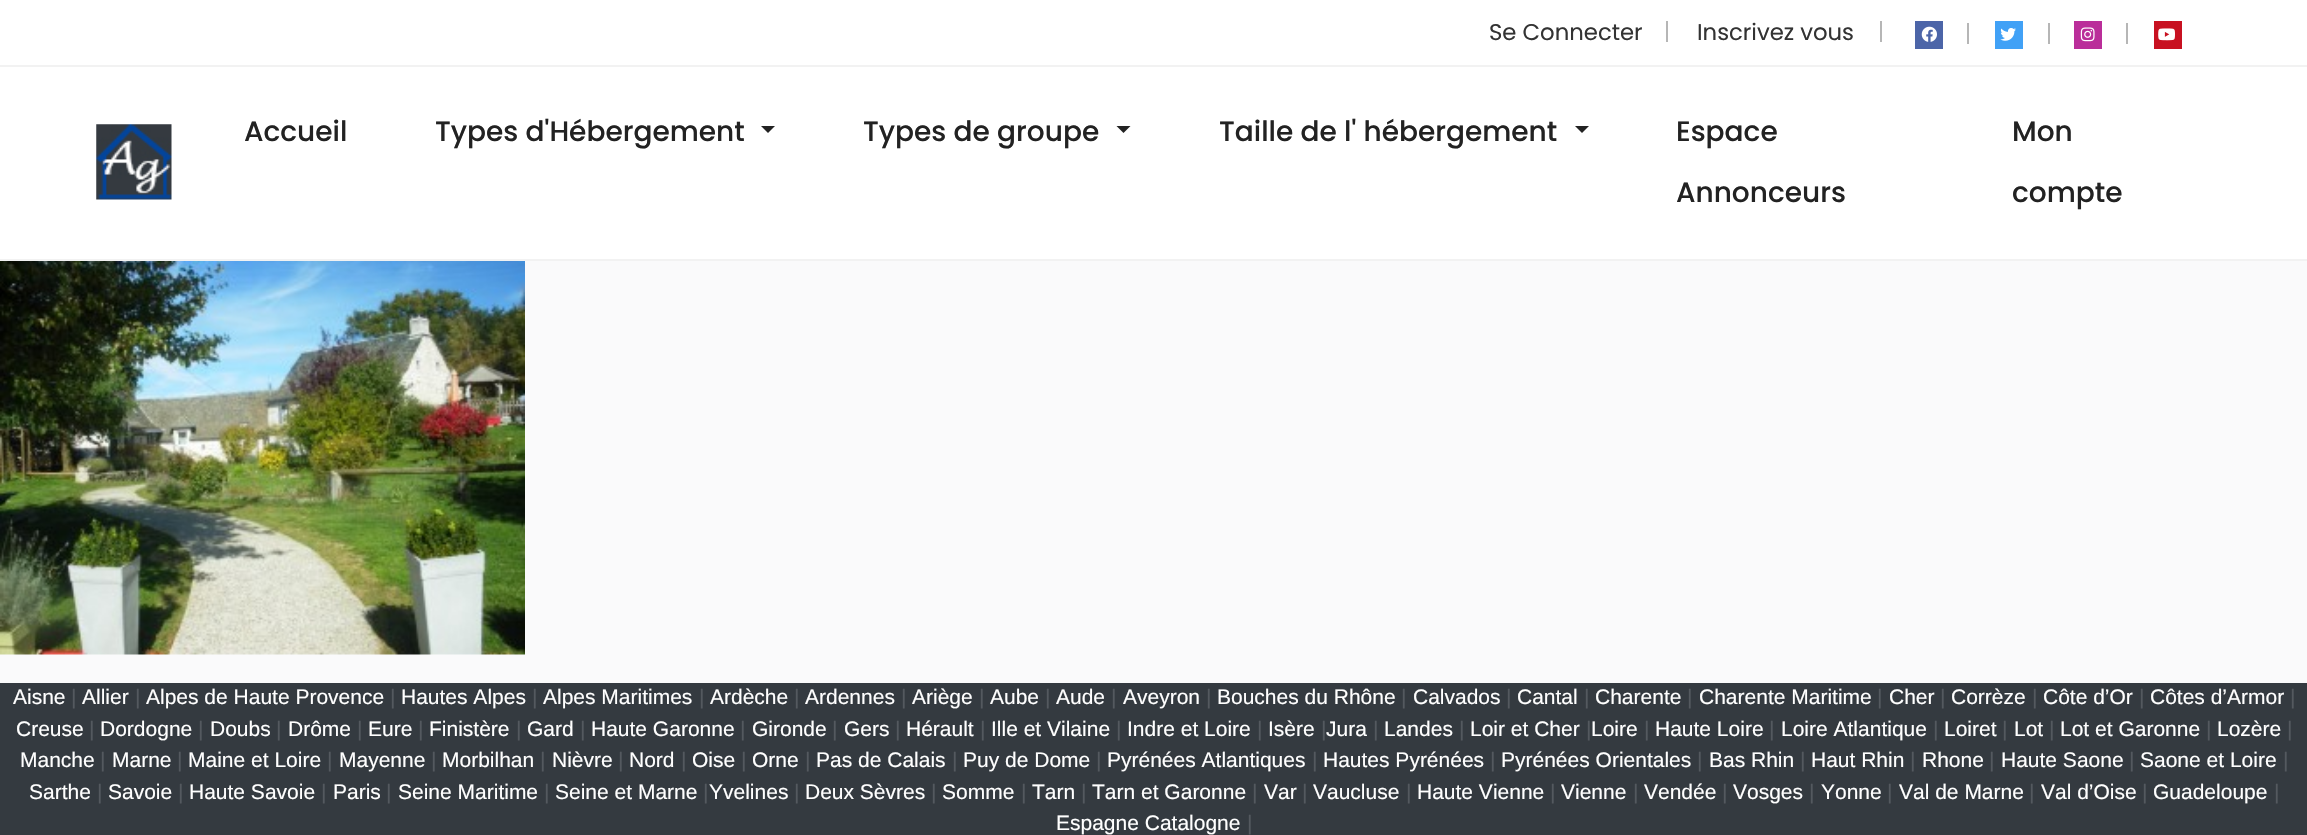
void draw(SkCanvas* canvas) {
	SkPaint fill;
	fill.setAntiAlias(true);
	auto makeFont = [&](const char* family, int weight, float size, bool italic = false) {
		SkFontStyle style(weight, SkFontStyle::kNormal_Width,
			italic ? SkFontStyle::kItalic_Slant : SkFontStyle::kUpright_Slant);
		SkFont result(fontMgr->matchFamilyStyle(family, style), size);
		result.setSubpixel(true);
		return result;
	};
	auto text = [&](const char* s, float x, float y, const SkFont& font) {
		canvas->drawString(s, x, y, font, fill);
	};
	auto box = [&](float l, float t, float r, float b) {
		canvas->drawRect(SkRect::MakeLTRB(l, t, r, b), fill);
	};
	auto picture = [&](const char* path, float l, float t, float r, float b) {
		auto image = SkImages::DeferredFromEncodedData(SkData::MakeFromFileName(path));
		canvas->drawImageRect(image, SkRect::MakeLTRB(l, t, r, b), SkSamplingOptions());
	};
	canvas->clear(0xFFFAFAFB);
	fill.setColor(0xFFFFFFFF);
	box(0, 0, 2307, 259);
	fill.setColor(0xFFF2F2F2);
	box(0, 259, 2307, 261);
	box(0, 65, 2307, 67);
	fill.setColor(0xFFB6B6B6);
	box(1666, 21, 1668, 42);
	box(1880, 21, 1882, 42);
	fill.setColor(0xFF4C65A8);
	box(1915, 21, 1943, 49);
	picture("image0.png", 1921, 26, 1937, 42);
	fill.setColor(0xFFB6B6B6);
	box(1967, 23, 1969, 44);
	fill.setColor(0xFF41A1F6);
	box(1995, 21, 2023, 49);
	picture("image1.png", 2000, 28, 2016, 41);
	fill.setColor(0xFFB6B6B6);
	box(2048, 23, 2050, 44);
	fill.setColor(0xFFBA2E9A);
	box(2074, 21, 2102, 49);
	picture("image2.png", 2080, 27, 2095, 42);
	fill.setColor(0xFFB6B6B6);
	box(2126, 23, 2128, 44);
	fill.setColor(0xFFC81121);
	box(2154, 21, 2182, 49);
	picture("image3.png", 2158, 28, 2175, 41);
	picture("image4.png", 96, 124, 172, 200);
	fill.setColor(0xFF222222);
	canvas->drawPath(SkPathBuilder().moveTo(761, 126).lineTo(775, 126).lineTo(768, 133).close().detach(), fill);
	canvas->drawPath(SkPathBuilder().moveTo(1116.5f, 126).lineTo(1130.5f, 126).lineTo(1123.5f, 133).close().detach(), fill);
	canvas->drawPath(SkPathBuilder().moveTo(1575, 126).lineTo(1589, 126).lineTo(1582, 133).close().detach(), fill);
	picture("image5.png", 0, 261, 525, 655);
	fill.setColor(0xFF343A40);
	box(0, 683, 2307, 835);
	auto font1 = makeFont("Poppins", 400, 22.75f);
	fill.setColor(0xFF333333);
	text("Se Connecter", 1489, 40, font1);
	text("Inscrivez vous", 1697, 40, font1);
	auto font2 = makeFont("Poppins", 500, 28);
	fill.setColor(0xFF222222);
	text("Accueil", 244, 141, font2);
	text("Types d'Hébergement", 435, 141, font2);
	text("Types de groupe", 863, 141, font2);
	text("Taille de l' hébergement", 1219, 141, font2);
	text("Espace", 1676, 141, font2);
	text("Annonceurs", 1676, 202, font2);
	text("Mon", 2012, 141, font2);
	text("compte", 2012, 202, font2);
	auto font3 = makeFont("Liberation Sans", 400, 21);
	fill.setColor(0xFFFFFFFF);
	text("Aisne", 13, 704, font3);
	fill.setColor(0xFF54595F);
	text("|", 71, 704, font3);
	fill.setColor(0xFFFFFFFF);
	text("Allier", 82, 704, font3);
	fill.setColor(0xFF54595F);
	text("|", 135, 704, font3);
	fill.setColor(0xFFFFFFFF);
	text("Alpes de Haute Provence", 146, 704, font3);
	fill.setColor(0xFF54595F);
	text("|", 390, 704, font3);
	fill.setColor(0xFFFFFFFF);
	text("Hautes Alpes", 401, 704, font3);
	fill.setColor(0xFF54595F);
	text("|", 532, 704, font3);
	fill.setColor(0xFFFFFFFF);
	text("Alpes Maritimes", 543, 704, font3);
	fill.setColor(0xFF54595F);
	text("|", 699, 704, font3);
	fill.setColor(0xFFFFFFFF);
	text("Ardèche", 710, 704, font3);
	fill.setColor(0xFF54595F);
	text("|", 794, 704, font3);
	fill.setColor(0xFFFFFFFF);
	text("Ardennes", 805, 704, font3);
	fill.setColor(0xFF54595F);
	text("|", 901, 704, font3);
	fill.setColor(0xFFFFFFFF);
	text("Ariège", 912, 704, font3);
	fill.setColor(0xFF54595F);
	text("|", 979, 704, font3);
	fill.setColor(0xFFFFFFFF);
	text("Aube", 990, 704, font3);
	fill.setColor(0xFF54595F);
	text("|", 1045, 704, font3);
	fill.setColor(0xFFFFFFFF);
	text("Aude", 1056, 704, font3);
	fill.setColor(0xFF54595F);
	text("|", 1111, 704, font3);
	fill.setColor(0xFFFFFFFF);
	text("Aveyron", 1123, 704, font3);
	fill.setColor(0xFF54595F);
	text("|", 1206, 704, font3);
	fill.setColor(0xFFFFFFFF);
	text("Bouches du Rhône", 1217, 704, font3);
	fill.setColor(0xFF54595F);
	text("|", 1401, 704, font3);
	fill.setColor(0xFFFFFFFF);
	text("Calvados", 1413, 704, font3);
	fill.setColor(0xFF54595F);
	text("|", 1506, 704, font3);
	fill.setColor(0xFFFFFFFF);
	text("Cantal", 1517, 704, font3);
	fill.setColor(0xFF54595F);
	text("|", 1584, 704, font3);
	fill.setColor(0xFFFFFFFF);
	text("Charente", 1595, 704, font3);
	fill.setColor(0xFF54595F);
	text("|", 1687, 704, font3);
	fill.setColor(0xFFFFFFFF);
	text("Charente Maritime", 1699, 704, font3);
	fill.setColor(0xFF54595F);
	text("|", 1877, 704, font3);
	fill.setColor(0xFFFFFFFF);
	text("Cher", 1889, 704, font3);
	fill.setColor(0xFF54595F);
	text("|", 1940, 704, font3);
	fill.setColor(0xFFFFFFFF);
	text("Corrèze", 1951, 704, font3);
	fill.setColor(0xFF54595F);
	text("|", 2032, 704, font3);
	fill.setColor(0xFFFFFFFF);
	text("Côte d’Or", 2043, 704, font3);
	fill.setColor(0xFF54595F);
	text("|", 2139, 704, font3);
	fill.setColor(0xFFFFFFFF);
	text("Côtes d’Armor", 2150, 704, font3);
	fill.setColor(0xFF54595F);
	text("|", 2290, 704, font3);
	fill.setColor(0xFFFFFFFF);
	text("Creuse", 16, 736, font3);
	fill.setColor(0xFF54595F);
	text("|", 89, 736, font3);
	fill.setColor(0xFFFFFFFF);
	text("Dordogne", 100, 736, font3);
	fill.setColor(0xFF54595F);
	text("|", 198, 736, font3);
	fill.setColor(0xFFFFFFFF);
	text("Doubs", 210, 736, font3);
	fill.setColor(0xFF54595F);
	text("|", 276, 736, font3);
	fill.setColor(0xFFFFFFFF);
	text("Drôme", 288, 736, font3);
	fill.setColor(0xFF54595F);
	text("|", 357, 736, font3);
	fill.setColor(0xFFFFFFFF);
	text("Eure", 368, 736, font3);
	fill.setColor(0xFF54595F);
	text("|", 418, 736, font3);
	fill.setColor(0xFFFFFFFF);
	text("Finistère", 429, 736, font3);
	fill.setColor(0xFF54595F);
	text("|", 516, 736, font3);
	fill.setColor(0xFFFFFFFF);
	text("Gard", 527, 736, font3);
	fill.setColor(0xFF54595F);
	text("|", 580, 736, font3);
	fill.setColor(0xFFFFFFFF);
	text("Haute Garonne", 591, 736, font3);
	fill.setColor(0xFF54595F);
	text("|", 740, 736, font3);
	fill.setColor(0xFFFFFFFF);
	text("Gironde", 752, 736, font3);
	fill.setColor(0xFF54595F);
	text("|", 832, 736, font3);
	fill.setColor(0xFFFFFFFF);
	text("Gers", 844, 736, font3);
	fill.setColor(0xFF54595F);
	text("|", 895, 736, font3);
	fill.setColor(0xFFFFFFFF);
	text("Hérault", 906, 736, font3);
	fill.setColor(0xFF54595F);
	text("|", 980, 736, font3);
	fill.setColor(0xFFFFFFFF);
	text("Ille et Vilaine", 991, 736, font3);
	fill.setColor(0xFF54595F);
	text("|", 1116, 736, font3);
	fill.setColor(0xFFFFFFFF);
	text("Indre et Loire", 1127, 736, font3);
	fill.setColor(0xFF54595F);
	text("|", 1257, 736, font3);
	fill.setColor(0xFFFFFFFF);
	text("Isère", 1268, 736, font3);
	fill.setColor(0xFF54595F);
	text("|", 1321, 736, font3);
	fill.setColor(0xFFFFFFFF);
	text("Jura", 1326, 736, font3);
	fill.setColor(0xFF54595F);
	text("|", 1373, 736, font3);
	fill.setColor(0xFFFFFFFF);
	text("Landes", 1384, 736, font3);
	fill.setColor(0xFF54595F);
	text("|", 1459, 736, font3);
	fill.setColor(0xFFFFFFFF);
	text("Loir et Cher", 1470, 736, font3);
	fill.setColor(0xFF54595F);
	text("|", 1586, 736, font3);
	fill.setColor(0xFFFFFFFF);
	text("Loire", 1591, 736, font3);
	fill.setColor(0xFF54595F);
	text("|", 1644, 736, font3);
	fill.setColor(0xFFFFFFFF);
	text("Haute Loire", 1655, 736, font3);
	fill.setColor(0xFF54595F);
	text("|", 1769, 736, font3);
	fill.setColor(0xFFFFFFFF);
	text("Loire Atlantique", 1781, 736, font3);
	fill.setColor(0xFF54595F);
	text("|", 1933, 736, font3);
	fill.setColor(0xFFFFFFFF);
	text("Loiret", 1944, 736, font3);
	fill.setColor(0xFF54595F);
	text("|", 2002, 736, font3);
	fill.setColor(0xFFFFFFFF);
	text("Lot", 2014, 736, font3);
	fill.setColor(0xFF54595F);
	text("|", 2049, 736, font3);
	fill.setColor(0xFFFFFFFF);
	text("Lot et Garonne", 2060, 736, font3);
	fill.setColor(0xFF54595F);
	text("|", 2206, 736, font3);
	fill.setColor(0xFFFFFFFF);
	text("Lozère", 2217, 736, font3);
	fill.setColor(0xFF54595F);
	text("|", 2287, 736, font3);
	fill.setColor(0xFFFFFFFF);
	text("Manche", 20, 767, font3);
	fill.setColor(0xFF54595F);
	text("|", 100, 767, font3);
	fill.setColor(0xFFFFFFFF);
	text("Marne", 112, 767, font3);
	fill.setColor(0xFF54595F);
	text("|", 177, 767, font3);
	fill.setColor(0xFFFFFFFF);
	text("Maine et Loire", 188, 767, font3);
	fill.setColor(0xFF54595F);
	text("|", 327, 767, font3);
	fill.setColor(0xFFFFFFFF);
	text("Mayenne", 339, 767, font3);
	fill.setColor(0xFF54595F);
	text("|", 431, 767, font3);
	fill.setColor(0xFFFFFFFF);
	text("Morbilhan", 442, 767, font3);
	fill.setColor(0xFF54595F);
	text("|", 540, 767, font3);
	fill.setColor(0xFFFFFFFF);
	text("Nièvre", 552, 767, font3);
	fill.setColor(0xFF54595F);
	text("|", 618, 767, font3);
	fill.setColor(0xFFFFFFFF);
	text("Nord", 629, 767, font3);
	fill.setColor(0xFF54595F);
	text("|", 681, 767, font3);
	fill.setColor(0xFFFFFFFF);
	text("Oise", 692, 767, font3);
	fill.setColor(0xFF54595F);
	text("|", 741, 767, font3);
	fill.setColor(0xFFFFFFFF);
	text("Orne", 752, 767, font3);
	fill.setColor(0xFF54595F);
	text("|", 805, 767, font3);
	fill.setColor(0xFFFFFFFF);
	text("Pas de Calais", 816, 767, font3);
	fill.setColor(0xFF54595F);
	text("|", 952, 767, font3);
	fill.setColor(0xFFFFFFFF);
	text("Puy de Dome", 963, 767, font3);
	fill.setColor(0xFF54595F);
	text("|", 1096, 767, font3);
	fill.setColor(0xFFFFFFFF);
	text("Pyrénées Atlantiques", 1107, 767, font3);
	fill.setColor(0xFF54595F);
	text("|", 1312, 767, font3);
	fill.setColor(0xFFFFFFFF);
	text("Hautes Pyrénées", 1323, 767, font3);
	fill.setColor(0xFF54595F);
	text("|", 1490, 767, font3);
	fill.setColor(0xFFFFFFFF);
	text("Pyrénées Orientales", 1501, 767, font3);
	fill.setColor(0xFF54595F);
	text("|", 1697, 767, font3);
	fill.setColor(0xFFFFFFFF);
	text("Bas Rhin", 1709, 767, font3);
	fill.setColor(0xFF54595F);
	text("|", 1800, 767, font3);
	fill.setColor(0xFFFFFFFF);
	text("Haut Rhin", 1811, 767, font3);
	fill.setColor(0xFF54595F);
	text("|", 1910, 767, font3);
	fill.setColor(0xFFFFFFFF);
	text("Rhone", 1922, 767, font3);
	fill.setColor(0xFF54595F);
	text("|", 1989, 767, font3);
	fill.setColor(0xFFFFFFFF);
	text("Haute Saone", 2001, 767, font3);
	fill.setColor(0xFF54595F);
	text("|", 2129, 767, font3);
	fill.setColor(0xFFFFFFFF);
	text("Saone et Loire", 2140, 767, font3);
	fill.setColor(0xFF54595F);
	text("|", 2283, 767, font3);
	fill.setColor(0xFFFFFFFF);
	text("Sarthe", 29, 799, font3);
	fill.setColor(0xFF54595F);
	text("|", 97, 799, font3);
	fill.setColor(0xFFFFFFFF);
	text("Savoie", 108, 799, font3);
	fill.setColor(0xFF54595F);
	text("|", 178, 799, font3);
	fill.setColor(0xFFFFFFFF);
	text("Haute Savoie", 189, 799, font3);
	fill.setColor(0xFF54595F);
	text("|", 321, 799, font3);
	fill.setColor(0xFFFFFFFF);
	text("Paris", 333, 799, font3);
	fill.setColor(0xFF54595F);
	text("|", 386, 799, font3);
	fill.setColor(0xFFFFFFFF);
	text("Seine Maritime", 398, 799, font3);
	fill.setColor(0xFF54595F);
	text("|", 544, 799, font3);
	fill.setColor(0xFFFFFFFF);
	text("Seine et Marne", 555, 799, font3);
	fill.setColor(0xFF54595F);
	text("|", 703, 799, font3);
	fill.setColor(0xFFFFFFFF);
	text("Yvelines", 709, 799, font3);
	fill.setColor(0xFF54595F);
	text("|", 794, 799, font3);
	fill.setColor(0xFFFFFFFF);
	text("Deux Sèvres", 805, 799, font3);
	fill.setColor(0xFF54595F);
	text("|", 931, 799, font3);
	fill.setColor(0xFFFFFFFF);
	text("Somme", 942, 799, font3);
	fill.setColor(0xFF54595F);
	text("|", 1021, 799, font3);
	fill.setColor(0xFFFFFFFF);
	text("Tarn", 1032, 799, font3);
	fill.setColor(0xFF54595F);
	text("|", 1081, 799, font3);
	fill.setColor(0xFFFFFFFF);
	text("Tarn et Garonne", 1092, 799, font3);
	fill.setColor(0xFF54595F);
	text("|", 1252, 799, font3);
	fill.setColor(0xFFFFFFFF);
	text("Var", 1264, 799, font3);
	fill.setColor(0xFF54595F);
	text("|", 1302, 799, font3);
	fill.setColor(0xFFFFFFFF);
	text("Vaucluse", 1313, 799, font3);
	fill.setColor(0xFF54595F);
	text("|", 1406, 799, font3);
	fill.setColor(0xFFFFFFFF);
	text("Haute Vienne", 1417, 799, font3);
	fill.setColor(0xFF54595F);
	text("|", 1550, 799, font3);
	fill.setColor(0xFFFFFFFF);
	text("Vienne", 1561, 799, font3);
	fill.setColor(0xFF54595F);
	text("|", 1633, 799, font3);
	fill.setColor(0xFFFFFFFF);
	text("Vendée", 1644, 799, font3);
	fill.setColor(0xFF54595F);
	text("|", 1722, 799, font3);
	fill.setColor(0xFFFFFFFF);
	text("Vosges", 1733, 799, font3);
	fill.setColor(0xFF54595F);
	text("|", 1809, 799, font3);
	fill.setColor(0xFFFFFFFF);
	text("Yonne", 1821, 799, font3);
	fill.setColor(0xFF54595F);
	text("|", 1887, 799, font3);
	fill.setColor(0xFFFFFFFF);
	text("Val de Marne", 1899, 799, font3);
	fill.setColor(0xFF54595F);
	text("|", 2029, 799, font3);
	fill.setColor(0xFFFFFFFF);
	text("Val d’Oise", 2041, 799, font3);
	fill.setColor(0xFF54595F);
	text("|", 2142, 799, font3);
	fill.setColor(0xFFFFFFFF);
	text("Guadeloupe", 2153, 799, font3);
	fill.setColor(0xFF54595F);
	text("|", 2274, 799, font3);
	fill.setColor(0xFFFFFFFF);
	text("Espagne Catalogne", 1056, 830, font3);
	fill.setColor(0xFF54595F);
	text("|", 1247, 830, font3);
}
